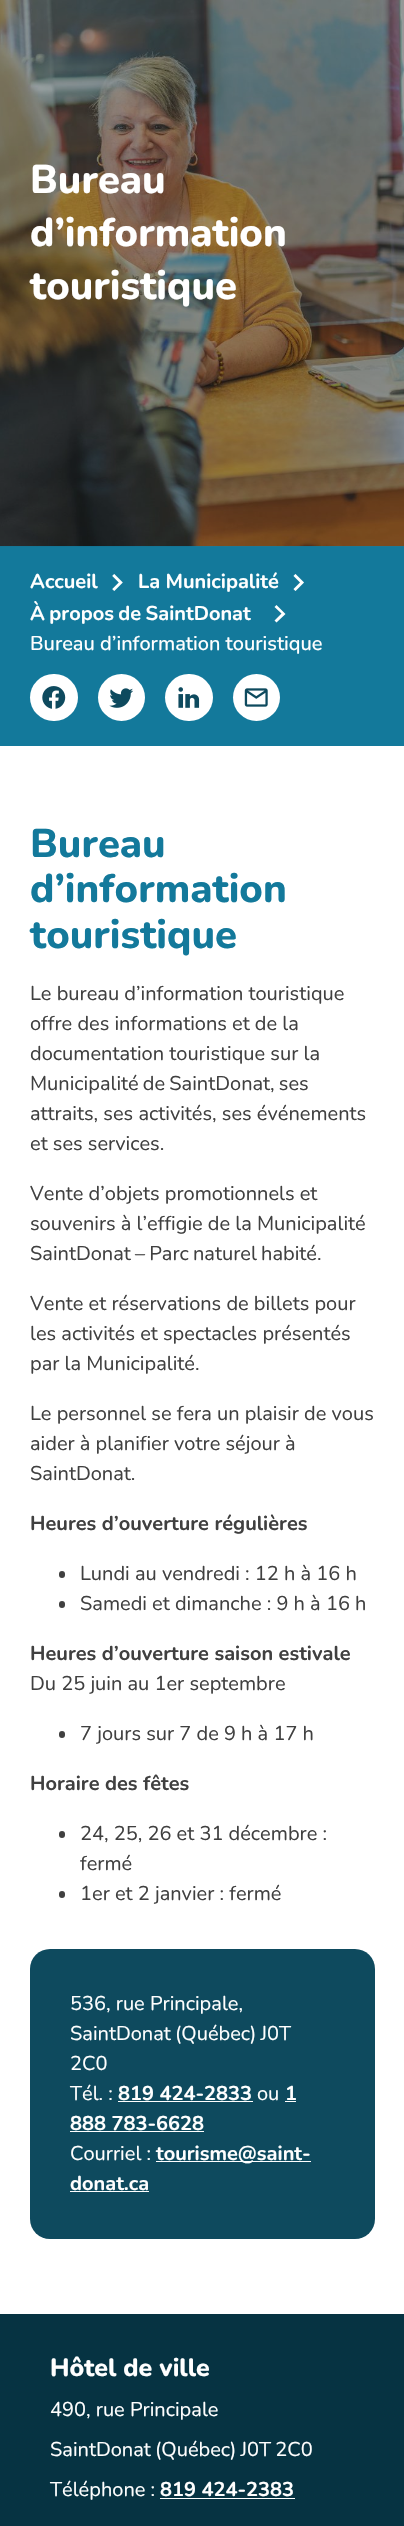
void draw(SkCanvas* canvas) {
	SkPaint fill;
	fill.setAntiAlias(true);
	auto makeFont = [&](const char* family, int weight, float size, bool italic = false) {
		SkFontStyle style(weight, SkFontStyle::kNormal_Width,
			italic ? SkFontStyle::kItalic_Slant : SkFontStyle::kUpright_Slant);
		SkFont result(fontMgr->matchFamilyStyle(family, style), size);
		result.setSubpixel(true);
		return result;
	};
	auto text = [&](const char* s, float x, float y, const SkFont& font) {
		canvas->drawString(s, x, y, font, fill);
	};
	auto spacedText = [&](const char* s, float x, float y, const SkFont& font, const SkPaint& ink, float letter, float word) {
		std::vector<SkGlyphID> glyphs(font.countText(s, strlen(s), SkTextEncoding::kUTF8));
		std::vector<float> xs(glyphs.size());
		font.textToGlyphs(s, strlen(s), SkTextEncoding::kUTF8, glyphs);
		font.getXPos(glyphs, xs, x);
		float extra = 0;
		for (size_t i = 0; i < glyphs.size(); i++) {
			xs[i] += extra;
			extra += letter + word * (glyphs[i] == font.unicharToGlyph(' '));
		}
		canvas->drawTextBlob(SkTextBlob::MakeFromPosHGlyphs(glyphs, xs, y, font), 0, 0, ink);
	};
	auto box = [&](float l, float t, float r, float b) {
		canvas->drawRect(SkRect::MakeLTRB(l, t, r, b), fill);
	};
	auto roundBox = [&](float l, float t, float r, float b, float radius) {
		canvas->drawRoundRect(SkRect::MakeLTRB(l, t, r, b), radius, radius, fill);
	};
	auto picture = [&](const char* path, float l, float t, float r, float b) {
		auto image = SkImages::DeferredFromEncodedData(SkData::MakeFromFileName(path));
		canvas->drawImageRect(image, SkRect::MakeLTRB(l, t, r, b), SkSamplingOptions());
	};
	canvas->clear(0xFFFFFFFF);
	fill.setColor(0xFF13799B);
	box(0, 546, 404, 746);
	picture("image0.png", 0, 0, 404, 547);
	picture("image1.png", 112, 574, 123, 591);
	picture("image2.png", 293, 574, 304, 591);
	fill.setColor(0xFFFFFFFF);
	canvas->drawPath(SkPathBuilder().moveTo(276.5f, 622.5f).lineTo(285.5f, 614).lineTo(276.5f, 605).lineTo(274.5f, 607).lineTo(281.5f, 613.5f).lineTo(274.5f, 620.5f).close().detach(), fill);
	roundBox(30, 674, 78, 721, 23.5f);
	picture("image3.png", 42, 686, 66, 709);
	canvas->drawCircle(121.5f, 697.5f, 23.5f, fill);
	picture("image4.png", 109, 688, 134, 708);
	roundBox(165, 674, 213, 721, 23.5f);
	picture("image5.png", 178, 687, 200, 708);
	canvas->drawCircle(256.5f, 697.5f, 23.5f, fill);
	picture("image6.png", 244, 688, 268, 707);
	fill.setColor(0xFF404040);
	roundBox(59, 1571, 65, 1578, 3);
	roundBox(59, 1601, 65, 1608, 3);
	roundBox(59, 1731, 65, 1738, 3);
	roundBox(59, 1831, 65, 1838, 3);
	roundBox(59, 1891, 65, 1898, 3);
	fill.setColor(0xFF0E4A5E);
	roundBox(30, 1949, 375, 2239, 20);
	fill.setColor(0xFFFFFFFF);
	box(118, 2101, 253, 2102);
	box(285, 2101, 296, 2102);
	box(70, 2131, 204, 2132);
	box(156, 2161, 311, 2162);
	box(70, 2191, 149, 2192);
	fill.setColor(0xFF063342);
	box(0, 2314, 404, 2526);
	fill.setColor(0xFFFFFFFF);
	box(160, 2498, 295, 2499);
	auto font1 = makeFont("Nunito", 800, 40);
	text("Bureau", 30, 193, font1);
	text("d’information", 30, 246, font1);
	text("touristique", 30, 299, font1);
	auto font2 = makeFont("Nunito", 700, 20);
	text("Accueil", 30, 588, font2);
	text("La Municipalité", 138, 588, font2);
	spacedText("À propos de Saint‑Donat", 30, 620, font2, fill, 0, -1);
	auto font3 = makeFont("Nunito", 500, 20);
	text("Bureau d’information touristique", 30, 650, font3);
	fill.setColor(0xFF13799B);
	text("Bureau", 30, 857, font1);
	text("d’information", 30, 902, font1);
	text("touristique", 30, 948, font1);
	auto font4 = makeFont("Nunito", 400, 20);
	fill.setColor(0xFF404040);
	text("Le bureau d’information touristique", 30, 1000, font4);
	text("offre des informations et de la", 30, 1030, font4);
	text("documentation touristique sur la", 30, 1060, font4);
	spacedText("Municipalité de Saint‑Donat, ses", 30, 1090, font4, fill, 0, -1);
	text("attraits, ses activités, ses événements", 30, 1120, font4);
	text("et ses services.", 30, 1150, font4);
	text("Vente d’objets promotionnels et", 30, 1200, font4);
	text("souvenirs à l’effigie de la Municipalité", 30, 1230, font4);
	spacedText("Saint‑Donat – Parc naturel habité.", 30, 1260, font4, fill, 0, -1);
	text("Vente et réservations de billets pour", 30, 1310, font4);
	text("les activités et spectacles présentés", 30, 1340, font4);
	text("par la Municipalité.", 30, 1370, font4);
	text("Le personnel se fera un plaisir de vous", 30, 1420, font4);
	text("aider à planifier votre séjour à", 30, 1450, font4);
	text("Saint‑Donat.", 30, 1480, font4);
	text("Heures d’ouverture régulières", 30, 1530, font2);
	text("Lundi au vendredi : 12 h à 16 h", 80, 1580, font4);
	text("Samedi et dimanche : 9 h à 16 h", 80, 1610, font4);
	text("Heures d’ouverture saison estivale", 30, 1660, font2);
	text("Du 25 juin au 1er septembre", 30, 1690, font4);
	text("7 jours sur 7 de 9 h à 17 h", 80, 1740, font4);
	text("Horaire des fêtes", 30, 1790, font2);
	text("24, 25, 26 et 31 décembre :", 80, 1840, font4);
	text("fermé", 80, 1870, font4);
	text("1er et 2 janvier : fermé", 80, 1900, font4);
	fill.setColor(0xFFFFFFFF);
	text("536, rue Principale,", 70, 2010, font4);
	spacedText("Saint‑Donat (Québec) J0T", 70, 2040, font4, fill, 0, -1);
	text("2C0", 70, 2070, font4);
	text("Tél. :", 70, 2100, font4);
	text("819 424-2833", 118, 2100, font2);
	text("ou", 257, 2100, font4);
	text("1", 285, 2100, font2);
	text("888 783-6628", 70, 2130, font2);
	text("Courriel :", 70, 2160, font4);
	text("tourisme@saint-", 156, 2160, font2);
	text("donat.ca", 70, 2190, font2);
	auto font5 = makeFont("Nunito", 800, 25);
	text("Hôtel de ville", 50, 2376, font5);
	text("490, rue Principale", 50, 2416, font4);
	spacedText("Saint‑Donat (Québec) J0T 2C0", 50, 2456, font4, fill, 0, -1);
	text("Téléphone :", 50, 2496, font4);
	text("819 424-2383", 160, 2496, font2);
}
